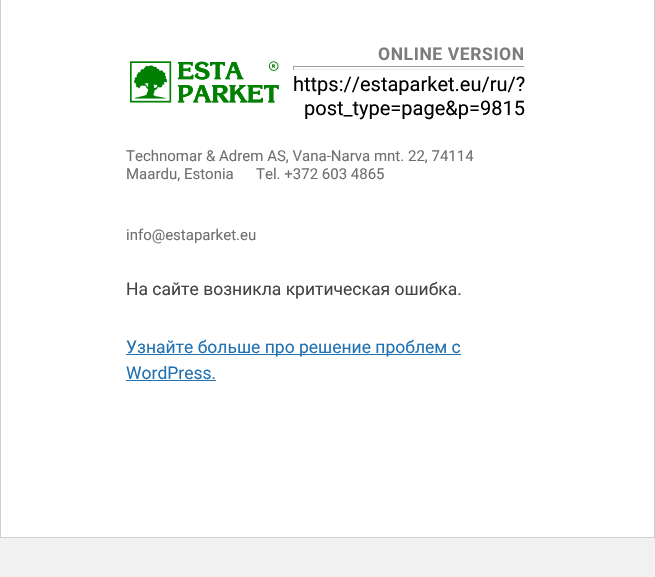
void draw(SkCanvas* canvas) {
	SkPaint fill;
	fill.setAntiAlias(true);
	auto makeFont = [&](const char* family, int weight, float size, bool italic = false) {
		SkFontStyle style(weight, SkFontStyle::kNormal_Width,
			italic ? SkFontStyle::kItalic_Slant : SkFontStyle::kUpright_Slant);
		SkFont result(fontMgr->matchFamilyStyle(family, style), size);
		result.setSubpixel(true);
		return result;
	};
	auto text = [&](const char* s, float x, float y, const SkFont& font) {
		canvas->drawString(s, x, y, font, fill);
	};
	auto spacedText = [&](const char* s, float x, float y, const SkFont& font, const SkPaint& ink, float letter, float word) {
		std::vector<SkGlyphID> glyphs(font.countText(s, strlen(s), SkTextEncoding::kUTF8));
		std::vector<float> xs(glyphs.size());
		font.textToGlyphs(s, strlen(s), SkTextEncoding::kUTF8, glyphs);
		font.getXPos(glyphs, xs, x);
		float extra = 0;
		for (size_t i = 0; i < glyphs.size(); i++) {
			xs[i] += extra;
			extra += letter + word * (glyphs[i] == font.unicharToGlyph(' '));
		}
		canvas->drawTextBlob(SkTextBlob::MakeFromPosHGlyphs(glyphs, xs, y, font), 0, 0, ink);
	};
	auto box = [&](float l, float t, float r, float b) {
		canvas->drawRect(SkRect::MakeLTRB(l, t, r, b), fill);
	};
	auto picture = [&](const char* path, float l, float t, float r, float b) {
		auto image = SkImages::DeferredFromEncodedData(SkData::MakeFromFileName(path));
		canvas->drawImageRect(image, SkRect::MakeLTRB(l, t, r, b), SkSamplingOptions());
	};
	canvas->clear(0xFFF1F1F1);
	fill.setColor(0xFFFFFFFF);
	canvas->drawRect(SkRect::MakeLTRB(0.5f, -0.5f, 654.5f, 537.5f), fill);
	fill.setStyle(SkPaint::kStroke_Style);
	fill.setStrokeWidth(1);
	fill.setColor(0xFFCCD0D4);
	canvas->drawRect(SkRect::MakeLTRB(0.5f, -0.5f, 654.5f, 537.5f), fill);
	picture("image0.png", 130, 61, 279, 103);
	fill.setStyle(SkPaint::kFill_Style);
	fill.setColor(0xFF9F9F9F);
	box(293, 66, 525, 67);
	fill.setColor(0xFFEEEEEE);
	box(524, 66, 525, 70);
	box(293, 69, 525, 70);
	fill.setColor(0xFF9F9F9F);
	box(293, 66, 294, 70);
	fill.setColor(0xFF2271B1);
	box(126, 354, 461, 355);
	box(126, 380, 216, 381);
	auto font1 = makeFont("Roboto", 700, 17.5f);
	fill.setColor(0xFF7C7C7C);
	spacedText("ONLINE VERSION", 378, 60, font1, fill, 0.6f, 0);
	auto font2 = makeFont("Roboto", 400, 20);
	fill.setColor(0xFF000000);
	text("https://estaparket.eu/ru/?", 293, 91, font2);
	text("post_type=page&p=9815", 304, 115, font2);
	auto font3 = makeFont("Roboto", 400, 15);
	fill.setColor(0xFF6F6F6F);
	text("Technomar & Adrem AS, Vana-Narva mnt. 22, 74114", 126, 161, font3);
	text("Maardu, Estonia      Tel. +372 603 4865", 126, 179, font3);
	text("info@estaparket.eu", 126, 240, font3);
	auto font4 = makeFont("Roboto", 400, 17.5f);
	fill.setColor(0xFF444444);
	text("На сайте возникла критическая ошибка.", 126, 295, font4);
	fill.setColor(0xFF2271B1);
	text("Узнайте больше про решение проблем с", 126, 353, font4);
	text("WordPress.", 126, 379, font4);
}
